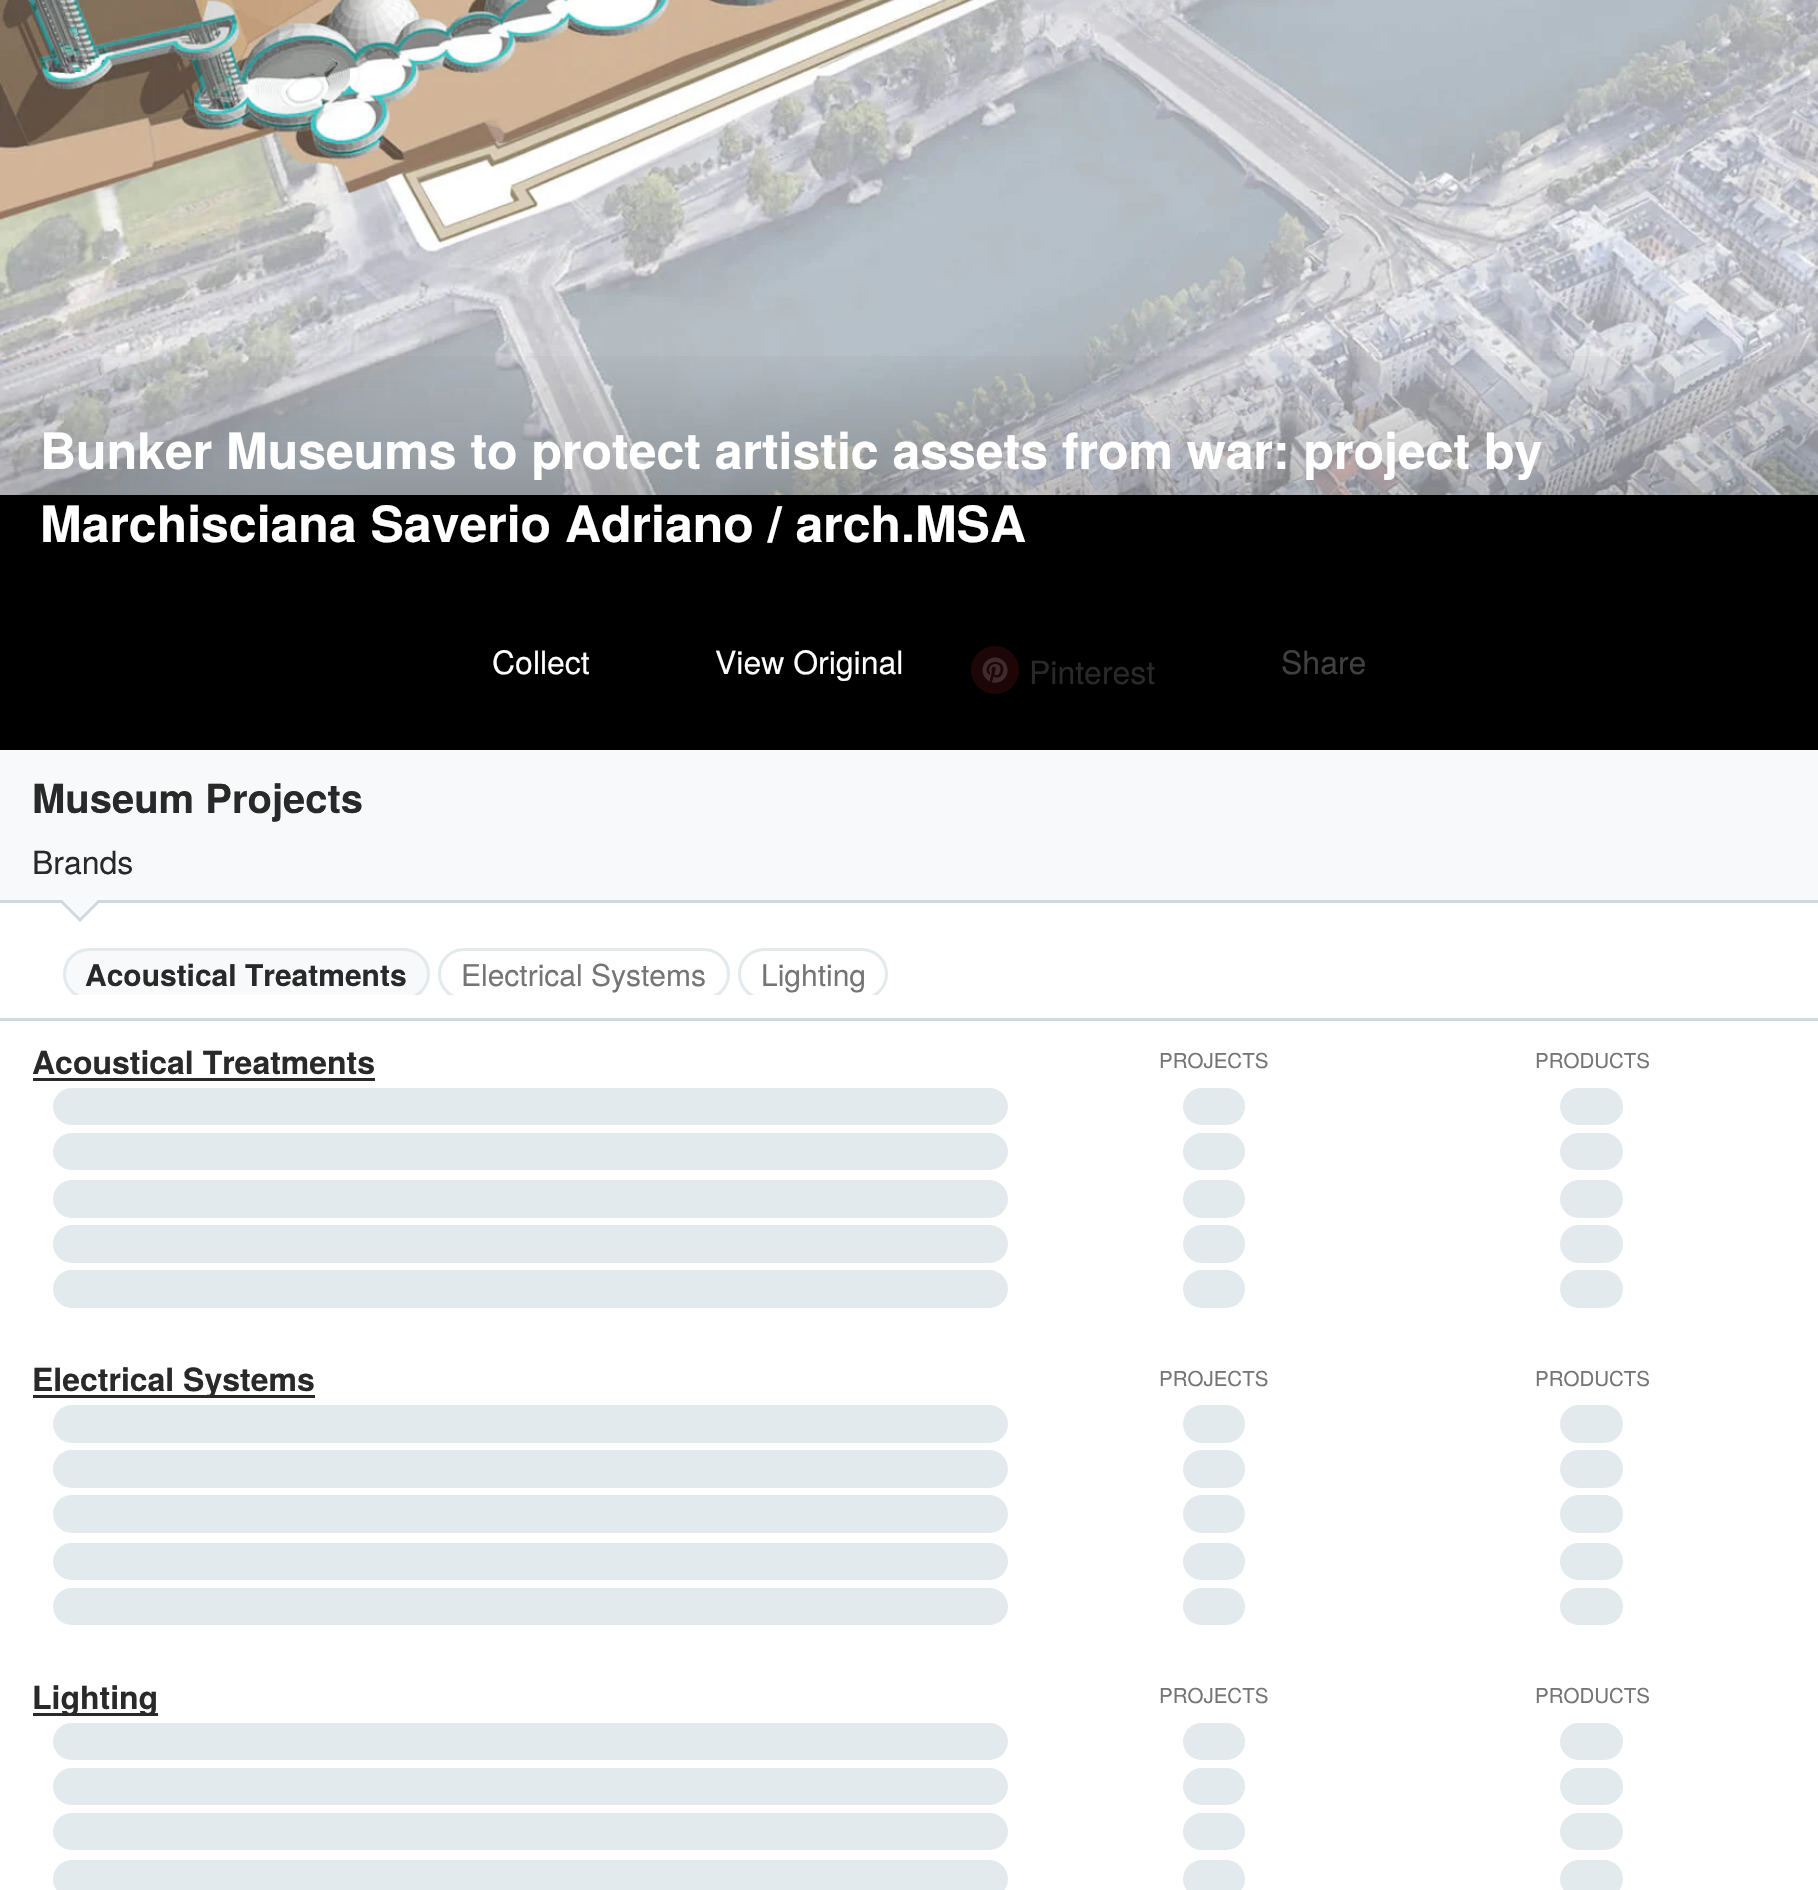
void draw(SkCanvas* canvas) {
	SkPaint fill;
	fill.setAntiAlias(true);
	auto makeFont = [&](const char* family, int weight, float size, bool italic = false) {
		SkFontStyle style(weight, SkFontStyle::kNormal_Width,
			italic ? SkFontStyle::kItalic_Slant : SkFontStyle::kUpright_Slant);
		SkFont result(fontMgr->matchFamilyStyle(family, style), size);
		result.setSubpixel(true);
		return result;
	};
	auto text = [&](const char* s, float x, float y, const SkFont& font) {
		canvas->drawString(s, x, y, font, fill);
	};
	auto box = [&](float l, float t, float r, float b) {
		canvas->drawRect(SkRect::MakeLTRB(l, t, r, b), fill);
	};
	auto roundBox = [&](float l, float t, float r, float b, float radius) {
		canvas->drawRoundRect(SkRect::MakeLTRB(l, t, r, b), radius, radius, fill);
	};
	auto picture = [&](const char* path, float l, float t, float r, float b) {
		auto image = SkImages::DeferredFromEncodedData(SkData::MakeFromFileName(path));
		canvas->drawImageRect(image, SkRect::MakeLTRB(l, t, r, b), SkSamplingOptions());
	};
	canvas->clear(0xFFFFFFFF);
	fill.setColor(0xFF000000);
	box(0, 495, 1818, 750);
	picture("image0.png", 0, 0, 1818, 495);
	{
		const SkColor colors[] = {0x80000000, 0x00000000};
		const float stops[] = {0, 1};
		const SkPoint ends[] = {{910, 750}, {910, 338}};
		fill.setShader(SkGradientShader::MakeLinear(ends, colors, stops, 2, SkTileMode::kClamp));
		fill.setAlpha(255);
	}
	box(0, 356, 1818, 495);
	picture("image1.png", 971, 646, 1019, 694);
	fill.setShader(nullptr);
	fill.setColor(0xFFF7F9FA);
	box(0, 750, 1818, 900);
	fill.setColor(0xFFCED9DF);
	box(0, 900, 1818, 903);
	canvas->drawPath(SkPathBuilder().moveTo(58, 900).lineTo(102, 900).lineTo(80, 922).close().detach(), fill);
	fill.setColor(0xFFF7F9FA);
	canvas->drawPath(SkPathBuilder().moveTo(60, 898).lineTo(100, 898).lineTo(80, 918).close().detach(), fill);
	canvas->save();
	canvas->clipRect(SkRect::MakeLTRB(63, 933, 1758, 995));
	canvas->drawRoundRect(SkRect::MakeLTRB(64.5f, 949.5f, 428.5f, 998.5f), 24.5f, 24.5f, fill);
	fill.setStyle(SkPaint::kStroke_Style);
	fill.setStrokeWidth(3);
	fill.setColor(0xFFE3EAED);
	canvas->drawRoundRect(SkRect::MakeLTRB(64.5f, 949.5f, 428.5f, 998.5f), 24.5f, 24.5f, fill);
	canvas->drawRoundRect(SkRect::MakeLTRB(439.5f, 949.5f, 728.5f, 998.5f), 24.5f, 24.5f, fill);
	canvas->drawRoundRect(SkRect::MakeLTRB(739.5f, 949.5f, 886.5f, 998.5f), 24.5f, 24.5f, fill);
	canvas->restore();
	fill.setStyle(SkPaint::kFill_Style);
	fill.setColor(0xFFCED9DF);
	box(0, 1018, 1818, 1021);
	fill.setColor(0xFF292929);
	box(33, 1078, 375, 1081);
	fill.setColor(0xFFE3EAED);
	roundBox(53, 1088, 1008, 1125, 18.5f);
	roundBox(1183, 1088, 1245, 1125, 18.5f);
	roundBox(1560, 1088, 1623, 1125, 18.5f);
	roundBox(53, 1133, 1008, 1170, 18.5f);
	roundBox(1183, 1133, 1245, 1170, 18.5f);
	roundBox(1560, 1133, 1623, 1170, 18.5f);
	roundBox(53, 1180, 1008, 1218, 19);
	roundBox(1183, 1180, 1245, 1218, 19);
	roundBox(1560, 1180, 1623, 1218, 19);
	roundBox(53, 1225, 1008, 1263, 19);
	roundBox(1183, 1225, 1245, 1263, 19);
	roundBox(1560, 1225, 1623, 1263, 19);
	roundBox(53, 1270, 1008, 1308, 19);
	roundBox(1183, 1270, 1245, 1308, 19);
	roundBox(1560, 1270, 1623, 1308, 19);
	fill.setColor(0xFF292929);
	box(33, 1395, 315, 1398);
	fill.setColor(0xFFE3EAED);
	roundBox(53, 1405, 1008, 1443, 19);
	roundBox(1183, 1405, 1245, 1443, 19);
	roundBox(1560, 1405, 1623, 1443, 19);
	roundBox(53, 1450, 1008, 1488, 19);
	roundBox(1183, 1450, 1245, 1488, 19);
	roundBox(1560, 1450, 1623, 1488, 19);
	roundBox(53, 1495, 1008, 1533, 19);
	roundBox(1183, 1495, 1245, 1533, 19);
	roundBox(1560, 1495, 1623, 1533, 19);
	roundBox(53, 1543, 1008, 1580, 18.5f);
	roundBox(1183, 1543, 1245, 1580, 18.5f);
	roundBox(1560, 1543, 1623, 1580, 18.5f);
	roundBox(53, 1588, 1008, 1625, 18.5f);
	roundBox(1183, 1588, 1245, 1625, 18.5f);
	roundBox(1560, 1588, 1623, 1625, 18.5f);
	fill.setColor(0xFF292929);
	box(33, 1713, 158, 1716);
	fill.setColor(0xFFE3EAED);
	roundBox(53, 1723, 1008, 1760, 18.5f);
	roundBox(1183, 1723, 1245, 1760, 18.5f);
	roundBox(1560, 1723, 1623, 1760, 18.5f);
	roundBox(53, 1768, 1008, 1805, 18.5f);
	roundBox(1183, 1768, 1245, 1805, 18.5f);
	roundBox(1560, 1768, 1623, 1805, 18.5f);
	roundBox(53, 1813, 1008, 1850, 18.5f);
	roundBox(1183, 1813, 1245, 1850, 18.5f);
	roundBox(1560, 1813, 1623, 1850, 18.5f);
	roundBox(53, 1860, 1008, 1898, 19);
	roundBox(1183, 1860, 1245, 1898, 19);
	roundBox(1560, 1860, 1623, 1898, 19);
	auto font1 = makeFont("TeX Gyre Heros", 700, 50);
	fill.setColor(0xFFFFFFFF);
	text("Bunker Museums to protect artistic assets from war: project by", 40, 469, font1);
	text("Marchisciana Saverio Adriano / arch.MSA", 40, 542, font1);
	auto font2 = makeFont("TeX Gyre Heros", 400, 32);
	text("Collect", 492, 674, font2);
	text("View Original", 715, 674, font2);
	fill.setColor(0xFF292929);
	text("Pinterest", 1029, 684, font2);
	fill.setColor(0xFF404040);
	text("Share", 1281, 674, font2);
	auto font3 = makeFont("TeX Gyre Heros", 700, 40);
	fill.setColor(0xFF292929);
	text("Museum Projects", 32, 813, font3);
	text("Brands", 32, 874, font2);
	auto font4 = makeFont("TeX Gyre Heros", 700, 30);
	text("Acoustical Treatments", 85, 986, font4);
	auto font5 = makeFont("TeX Gyre Heros", 400, 30);
	fill.setColor(0xFF757575);
	text("Electrical Systems", 461, 986, font5);
	text("Lighting", 761, 986, font5);
	auto font6 = makeFont("TeX Gyre Heros", 700, 32);
	fill.setColor(0xFF292929);
	text("Acoustical Treatments", 32, 1074, font6);
	auto font7 = makeFont("TeX Gyre Heros", 400, 20.5f);
	fill.setColor(0xFF757575);
	text("PROJECTS", 1159, 1068, font7);
	text("PRODUCTS", 1535, 1068, font7);
	fill.setColor(0xFF292929);
	text("Electrical Systems", 32, 1391, font6);
	fill.setColor(0xFF757575);
	text("PROJECTS", 1159, 1386, font7);
	text("PRODUCTS", 1535, 1386, font7);
	fill.setColor(0xFF292929);
	text("Lighting", 32, 1709, font6);
	fill.setColor(0xFF757575);
	text("PROJECTS", 1159, 1703, font7);
	text("PRODUCTS", 1535, 1703, font7);
}
